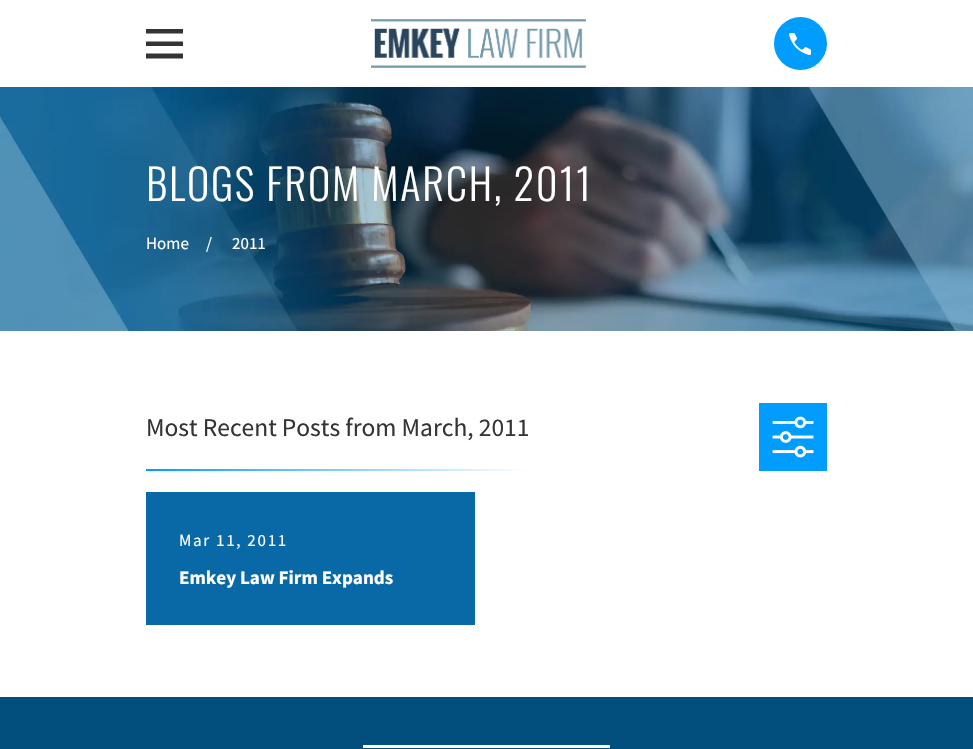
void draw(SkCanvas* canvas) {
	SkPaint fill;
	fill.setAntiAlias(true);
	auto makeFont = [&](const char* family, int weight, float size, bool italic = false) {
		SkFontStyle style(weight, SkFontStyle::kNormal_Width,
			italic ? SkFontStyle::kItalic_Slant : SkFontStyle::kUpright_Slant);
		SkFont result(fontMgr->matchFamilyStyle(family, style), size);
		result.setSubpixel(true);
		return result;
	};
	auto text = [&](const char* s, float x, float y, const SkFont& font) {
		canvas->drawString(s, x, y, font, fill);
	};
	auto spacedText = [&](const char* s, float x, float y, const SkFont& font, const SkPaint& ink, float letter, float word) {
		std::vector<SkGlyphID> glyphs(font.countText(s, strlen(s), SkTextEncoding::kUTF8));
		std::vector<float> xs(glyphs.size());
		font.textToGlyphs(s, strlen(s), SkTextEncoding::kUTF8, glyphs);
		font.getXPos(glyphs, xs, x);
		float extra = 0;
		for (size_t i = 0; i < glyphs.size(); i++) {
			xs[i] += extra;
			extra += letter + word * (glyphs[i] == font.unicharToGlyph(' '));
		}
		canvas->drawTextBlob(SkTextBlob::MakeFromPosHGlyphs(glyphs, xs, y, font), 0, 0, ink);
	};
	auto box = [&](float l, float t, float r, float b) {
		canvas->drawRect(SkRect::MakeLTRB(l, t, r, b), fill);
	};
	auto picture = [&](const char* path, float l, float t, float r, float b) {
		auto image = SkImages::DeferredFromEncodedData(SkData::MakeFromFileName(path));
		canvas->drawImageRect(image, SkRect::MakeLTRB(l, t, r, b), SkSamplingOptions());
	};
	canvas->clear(0xFFFFFFFF);
	canvas->save();
	canvas->clipRect(SkRect::MakeLTRB(146, 25, 183, 62));
	fill.setColor(0xFF343434);
	canvas->drawPath(SkPathBuilder().moveTo(146, 29).lineTo(146, 33.5f).lineTo(183.5f, 33.5f).lineTo(183.5f, 29).close().moveTo(146, 41.5f).lineTo(146, 46).lineTo(183.5f, 46).lineTo(183.5f, 41.5f).close().moveTo(146, 53.5f).lineTo(146, 58.5f).lineTo(183.5f, 58.5f).lineTo(183.5f, 53.5f).close().detach(), fill);
	canvas->restore();
	picture("image0.png", 371, 19, 586, 68);
	fill.setColor(0xFF009DFF);
	canvas->drawCircle(800.5f, 43.5f, 26.5f, fill);
	picture("image1.png", 789, 33, 811, 55);
	picture("image2.png", 0, 87, 973, 331);
	{
		const SkColor colors[] = {0xFF009DFF, 0xFFFFFFFF};
		const float stops[] = {0, 1};
		const SkPoint ends[] = {{146, 470}, {529, 470}};
		fill.setShader(SkGradientShader::MakeLinear(ends, colors, stops, 2, SkTileMode::kClamp));
		fill.setAlpha(255);
	}
	box(146, 469, 529, 471);
	fill.setShader(nullptr);
	fill.setColor(0xFF009DFF);
	box(759, 403, 827, 471);
	picture("image3.png", 772, 416, 814, 458);
	fill.setColor(0xFF0869A6);
	box(146, 492, 475, 625);
	fill.setColor(0xFF024E7D);
	box(0, 697, 973, 749);
	fill.setColor(0xFFFFFFFF);
	box(363, 745, 610, 748);
	auto font1 = makeFont("Oswald", 300, 42.5f);
	spacedText("BLOGS FROM MARCH, 2011", 146, 201, font1, fill, 1.7f, 0);
	auto font2 = makeFont("Source Sans Pro", 400, 17);
	text("Home", 146, 249, font2);
	text("/", 206, 249, font2);
	text("2011", 232, 249, font2);
	auto font3 = makeFont("Source Sans Pro", 400, 25.5f);
	fill.setColor(0xFF343434);
	text("Most Recent Posts from March, 2011", 146, 436, font3);
	fill.setColor(0xFFFFFFFF);
	spacedText("Mar 11, 2011", 179, 546, font2, fill, 1.7f, 0);
	auto font4 = makeFont("Source Sans Pro", 700, 19.1f);
	text("Emkey Law Firm Expands", 179, 584, font4);
}
